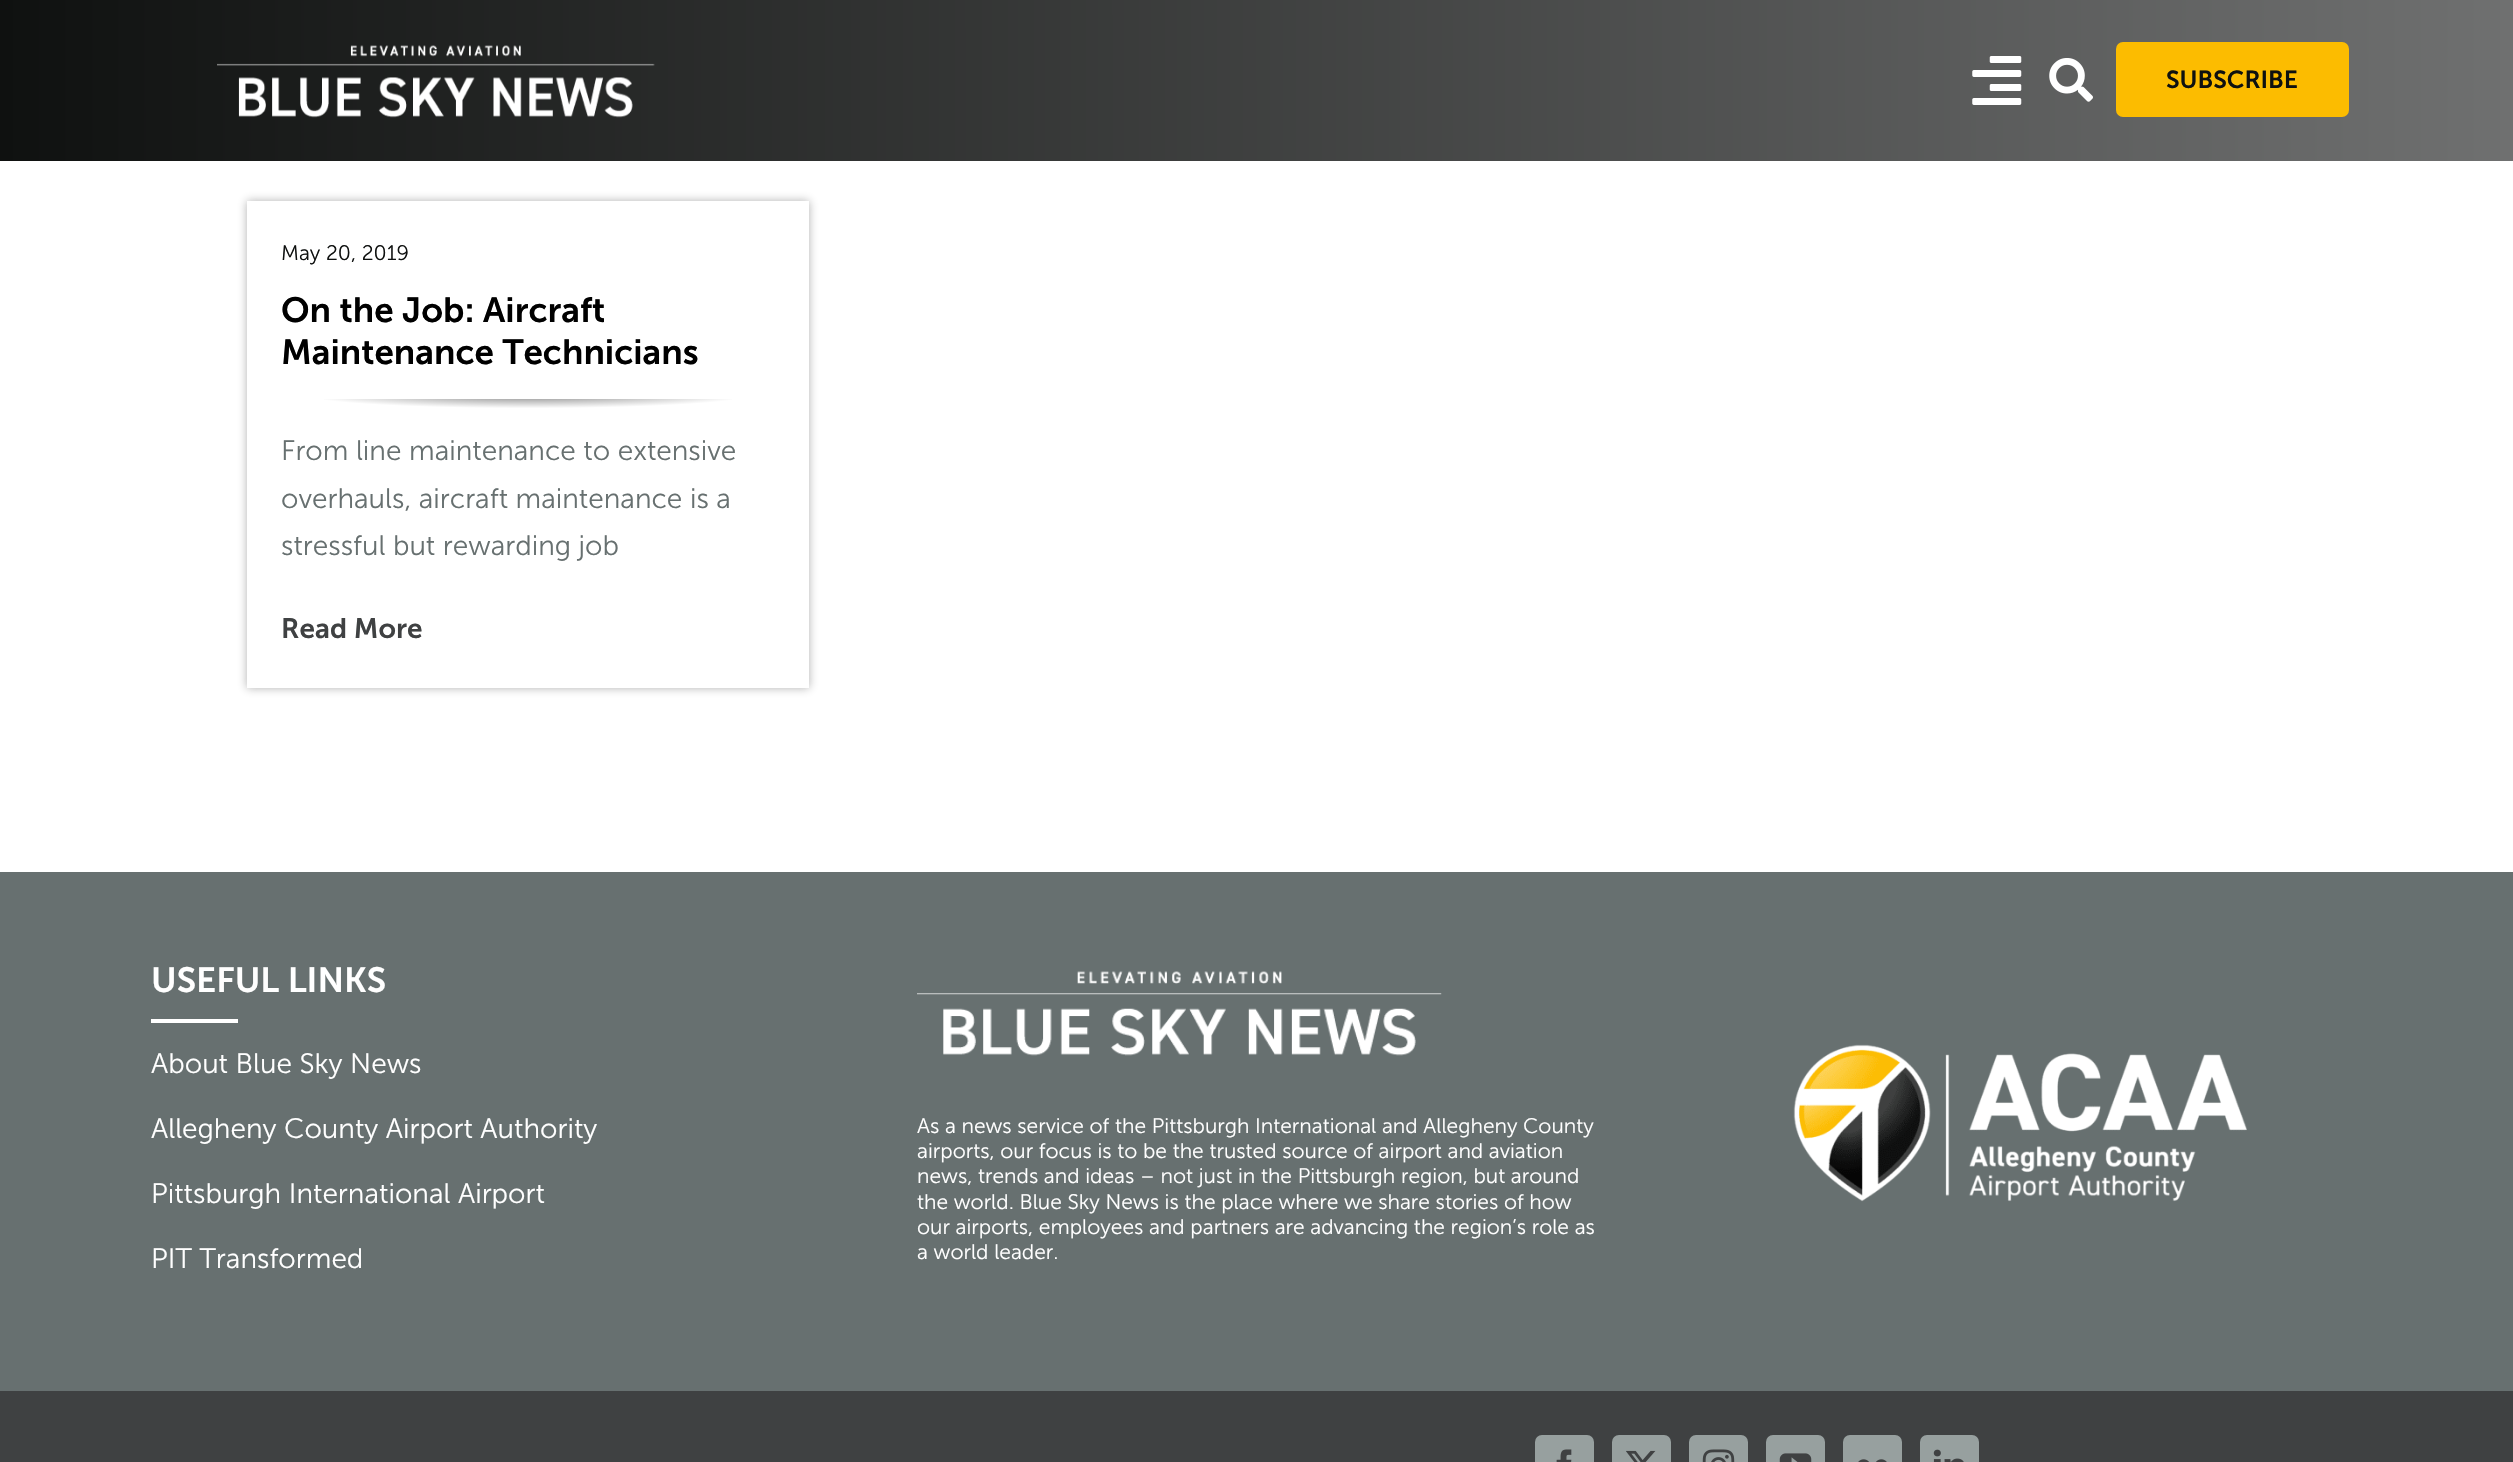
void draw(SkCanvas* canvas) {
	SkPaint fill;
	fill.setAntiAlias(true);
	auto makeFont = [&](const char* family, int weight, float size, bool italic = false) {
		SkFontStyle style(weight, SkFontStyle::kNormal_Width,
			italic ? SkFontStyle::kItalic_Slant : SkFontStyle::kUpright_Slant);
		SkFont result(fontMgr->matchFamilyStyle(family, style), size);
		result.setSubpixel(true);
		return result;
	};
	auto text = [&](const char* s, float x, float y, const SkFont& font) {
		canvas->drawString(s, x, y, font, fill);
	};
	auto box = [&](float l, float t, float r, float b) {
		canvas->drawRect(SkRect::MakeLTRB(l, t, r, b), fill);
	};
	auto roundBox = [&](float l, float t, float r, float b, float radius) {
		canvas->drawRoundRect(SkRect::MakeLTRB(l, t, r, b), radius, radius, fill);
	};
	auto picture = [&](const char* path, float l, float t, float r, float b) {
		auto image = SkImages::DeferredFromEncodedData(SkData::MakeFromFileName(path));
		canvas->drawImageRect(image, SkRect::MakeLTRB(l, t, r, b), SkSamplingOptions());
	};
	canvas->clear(0xFFFFFFFF);
	{
		const SkColor colors[] = {0xFF0F1110, 0xFF6F7070};
		const float stops[] = {0, 1};
		const SkPoint ends[] = {{0, 81}, {2513, 80}};
		fill.setShader(SkGradientShader::MakeLinear(ends, colors, stops, 2, SkTileMode::kClamp));
		fill.setAlpha(255);
	}
	box(0, 0, 2513, 161);
	picture("image0.png", 217, 45, 655, 118);
	picture("image1.png", 1972, 56, 2022, 105);
	picture("image2.png", 2049, 58, 2093, 102);
	fill.setShader(nullptr);
	fill.setColor(0xFFFCBC00);
	roundBox(2116, 42, 2349, 117, 7);
	fill.setColor(0x591C1C1C);
	fill.setMaskFilter(SkMaskFilter::MakeBlur(kNormal_SkBlurStyle, 4.5f));
	canvas->drawRect(SkRect::MakeLTRB(247, 201, 809, 688), fill);
	fill.setMaskFilter(nullptr);
	fill.setColor(0xFFFFFFFF);
	box(247, 201, 809, 688);
	{
		const SkColor colors[] = {0xFF808080, 0xFFFFFFFF};
		const float stops[] = {0, 0.65f};
		SkMatrix m = SkMatrix::Translate(528, 394).preScale(348, 22);
		fill.setShader(SkGradientShader::MakeRadial({0, 0}, 1, colors, stops, 2, SkTileMode::kClamp, 0, &m));
		fill.setAlpha(255);
	}
	box(324, 399, 732, 408);
	fill.setShader(nullptr);
	fill.setColor(0xFF677070);
	box(0, 872, 2513, 1391);
	fill.setColor(0xFFFFFFFF);
	box(151, 1019, 238, 1023);
	picture("image3.png", 917, 971, 1442, 1056);
	picture("image4.png", 1793, 1044, 2247, 1202);
	fill.setColor(0xFF3F4142);
	box(0, 1391, 2513, 1462);
	fill.setColor(0xFF97A09F);
	roundBox(1535, 1435, 1594, 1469, 7);
	picture("image5.png", 1556, 1449, 1572, 1462);
	roundBox(1612, 1435, 1671, 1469, 7);
	picture("image6.png", 1626, 1450, 1656, 1462);
	roundBox(1689, 1435, 1748, 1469, 7);
	picture("image7.png", 1702, 1449, 1735, 1462);
	roundBox(1766, 1435, 1825, 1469, 7);
	picture("image8.png", 1779, 1453, 1812, 1462);
	roundBox(1843, 1435, 1902, 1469, 7);
	picture("image9.png", 1858, 1459, 1887, 1462);
	roundBox(1920, 1435, 1979, 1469, 7);
	picture("image10.png", 1933, 1449, 1964, 1462);
	auto font1 = makeFont("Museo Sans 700", 600, 24.5f);
	fill.setColor(0xFF0F1110);
	text("SUBSCRIBE", 2166, 88, font1);
	auto font2 = makeFont("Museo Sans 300", 300, 21);
	text("May 20, 2019", 281, 260, font2);
	auto font3 = makeFont("Museo Sans 700", 600, 35);
	fill.setColor(0xFF000000);
	text("On the Job: Aircraft", 281, 322, font3);
	text("Maintenance Technicians", 281, 364, font3);
	auto font4 = makeFont("Museo Sans 300", 300, 28);
	fill.setColor(0xFF677070);
	text("From line maintenance to extensive", 281, 460, font4);
	text("overhauls, aircraft maintenance is a", 281, 508, font4);
	text("stressful but rewarding job", 281, 555, font4);
	auto font5 = makeFont("Museo Sans 700", 600, 28);
	fill.setColor(0xFF3F4142);
	text("Read More", 281, 638, font5);
	fill.setColor(0xFFFFFFFF);
	text("USEFUL LINKS", 151, 992, font3);
	text("About Blue Sky News", 151, 1073, font4);
	text("Allegheny County Airport Authority", 151, 1138, font4);
	text("Pittsburgh International Airport", 151, 1203, font4);
	text("PIT Transformed", 151, 1268, font4);
	text("As a news service of the Pittsburgh International and Allegheny County", 917, 1133, font2);
	text("airports, our focus is to be the trusted source of airport and aviation", 917, 1158, font2);
	text("news, trends and ideas – not just in the Pittsburgh region, but around", 917, 1183, font2);
	text("the world. Blue Sky News is the place where we share stories of how", 917, 1209, font2);
	text("our airports, employees and partners are advancing the region’s role as", 917, 1234, font2);
	text("a world leader.", 917, 1259, font2);
}
